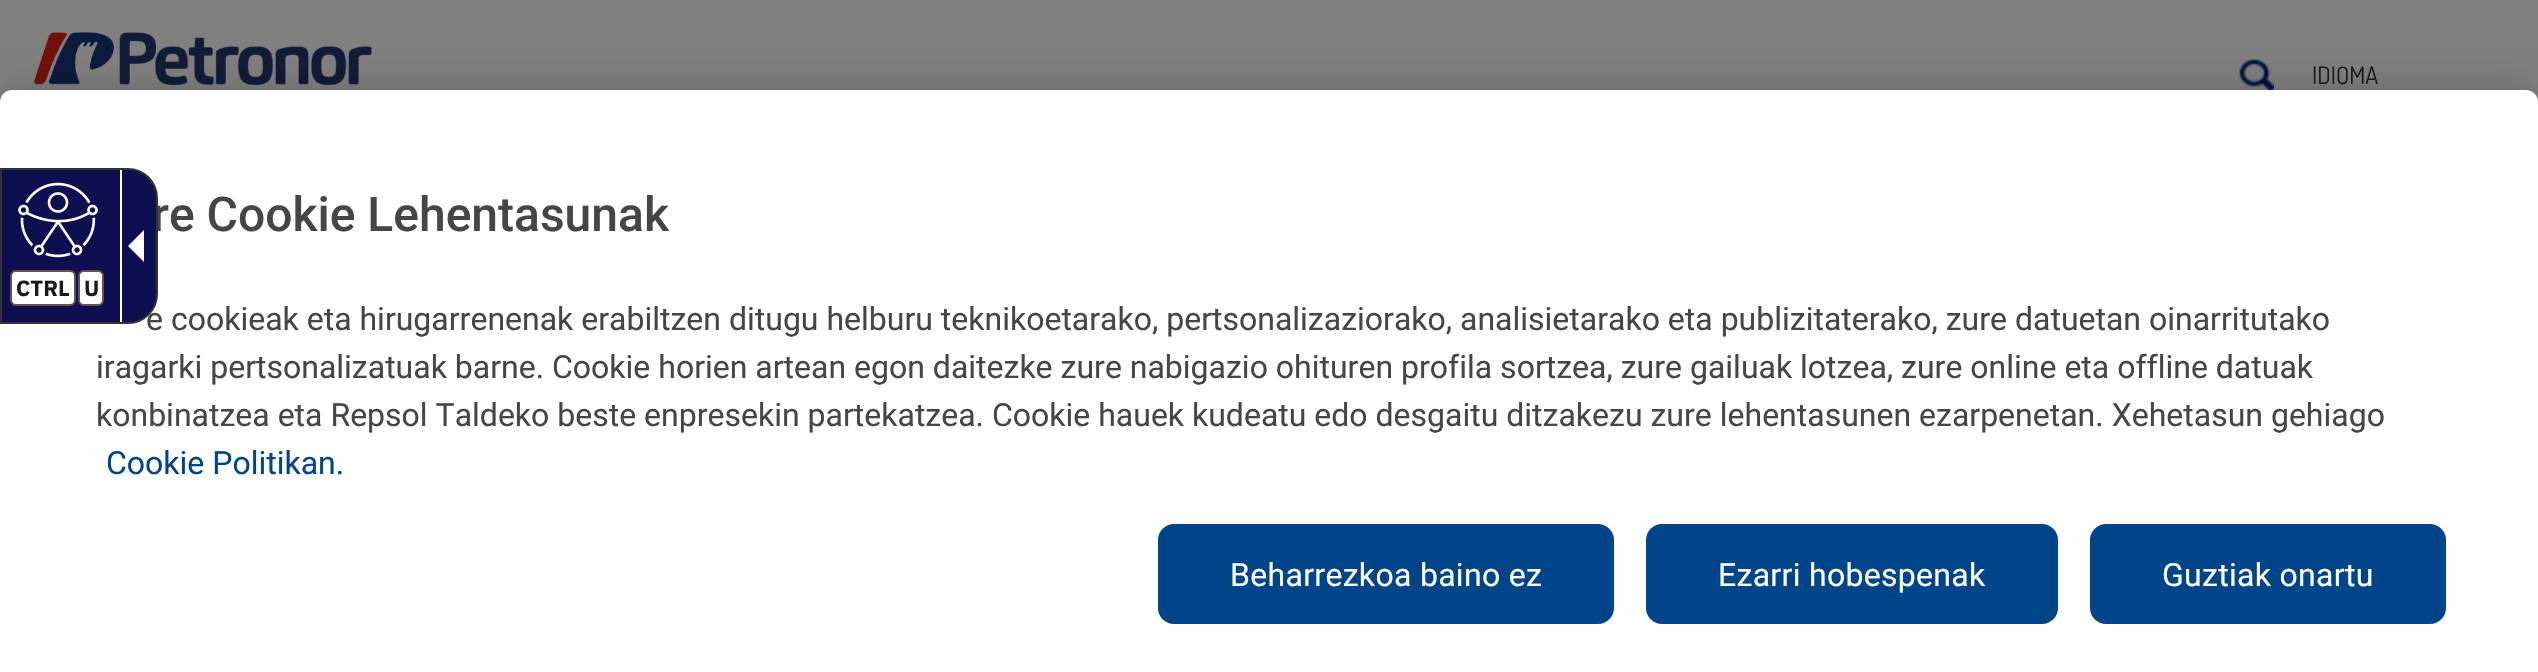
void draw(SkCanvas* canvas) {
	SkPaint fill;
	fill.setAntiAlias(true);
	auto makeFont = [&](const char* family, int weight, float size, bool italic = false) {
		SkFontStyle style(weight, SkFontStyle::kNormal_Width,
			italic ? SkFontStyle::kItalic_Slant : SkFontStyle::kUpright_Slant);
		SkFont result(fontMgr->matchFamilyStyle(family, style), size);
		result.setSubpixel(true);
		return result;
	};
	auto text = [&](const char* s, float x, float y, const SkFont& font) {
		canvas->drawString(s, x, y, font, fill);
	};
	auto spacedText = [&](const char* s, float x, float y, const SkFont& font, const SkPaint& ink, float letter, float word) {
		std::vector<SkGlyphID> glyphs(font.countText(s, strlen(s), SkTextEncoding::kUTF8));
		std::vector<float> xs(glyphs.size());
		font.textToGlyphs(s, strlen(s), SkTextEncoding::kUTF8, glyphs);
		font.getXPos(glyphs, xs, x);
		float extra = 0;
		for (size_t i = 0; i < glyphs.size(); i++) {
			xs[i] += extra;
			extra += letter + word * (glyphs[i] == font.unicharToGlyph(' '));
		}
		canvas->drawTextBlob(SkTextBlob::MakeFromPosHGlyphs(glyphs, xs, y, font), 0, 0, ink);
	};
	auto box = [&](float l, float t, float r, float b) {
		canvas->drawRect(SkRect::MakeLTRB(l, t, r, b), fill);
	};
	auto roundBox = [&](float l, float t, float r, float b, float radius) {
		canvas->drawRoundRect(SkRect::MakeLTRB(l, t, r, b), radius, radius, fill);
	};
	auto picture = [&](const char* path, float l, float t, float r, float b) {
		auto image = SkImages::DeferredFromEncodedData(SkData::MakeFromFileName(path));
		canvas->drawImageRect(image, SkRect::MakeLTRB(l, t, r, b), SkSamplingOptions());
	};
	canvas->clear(0xFF808080);
	picture("image0.png", 34, 32, 372, 86);
	picture("image1.png", 2239, 59, 2274, 90);
	fill.setColor(0x33000000);
	fill.setMaskFilter(SkMaskFilter::MakeBlur(kNormal_SkBlurStyle, 18));
	canvas->drawRoundRect(SkRect::MakeLTRB(0, 90, 2538, 672), 12, 12, fill);
	fill.setMaskFilter(nullptr);
	fill.setColor(0xFFFFFFFF);
	canvas->drawPath(SkPathBuilder().moveTo(12, 90).lineTo(2526, 90).cubicTo(2532.5f, 90, 2538, 95.5f, 2538, 102).lineTo(2538, 672).lineTo(0, 672).lineTo(0, 102).cubicTo(0, 95.5f, 5.5f, 90, 12, 90).close().detach(), fill);
	fill.setColor(0xFF004489);
	roundBox(1158, 524, 1614, 624, 16);
	roundBox(1646, 524, 2058, 624, 16);
	roundBox(2090, 524, 2446, 624, 16);
	auto font1 = makeFont("Dosis", 400, 24);
	fill.setColor(0xFF1A1A1A);
	text("IDIOMA", 2312, 84, font1);
	auto font2 = makeFont("Roboto", 500, 48);
	fill.setColor(0xFF464646);
	text("re Cookie Lehentasunak", 152, 231, font2);
	auto font3 = makeFont("Roboto", 400, 32);
	text("e cookieak eta hirugarrenenak erabiltzen ditugu helburu teknikoetarako, pertsonalizaziorako, analisietarako eta publizitaterako, zure datuetan oinarritutako", 146, 330, font3);
	fill.setColor(0xFF0E0F51);
	canvas->drawPath(SkPathBuilder().moveTo(1, 169).lineTo(128, 169).cubicTo(144, 169, 157, 182, 157, 198).lineTo(157, 294).cubicTo(157, 310, 144, 323, 128, 323).lineTo(1, 323).close().detach(), fill);
	fill.setStyle(SkPaint::kStroke_Style);
	fill.setStrokeWidth(2);
	fill.setColor(0xFF333333);
	canvas->drawPath(SkPathBuilder().moveTo(1, 169).lineTo(128, 169).cubicTo(144, 169, 157, 182, 157, 198).lineTo(157, 294).cubicTo(157, 310, 144, 323, 128, 323).lineTo(1, 323).close().detach(), fill);
	fill.setStyle(SkPaint::kFill_Style);
	fill.setColor(0xFFFFFFFF);
	canvas->drawPath(SkPathBuilder().moveTo(144, 230).lineTo(144, 262).lineTo(128, 246).close().detach(), fill);
	picture("image2.png", 18, 182, 98, 258);
	canvas->drawRoundRect(SkRect::MakeLTRB(79, 271, 103, 305), 5, 5, fill);
	fill.setStyle(SkPaint::kStroke_Style);
	fill.setColor(0xFF635252);
	canvas->drawRoundRect(SkRect::MakeLTRB(79, 271, 103, 305), 5, 5, fill);
	auto font4 = makeFont("IBM Plex Sans", 700, 22);
	fill.setStyle(SkPaint::kFill_Style);
	fill.setColor(0xFF1A1A1A);
	text("U", 84, 296, font4);
	fill.setColor(0xFFFFFFFF);
	canvas->drawRoundRect(SkRect::MakeLTRB(11, 271, 75, 305), 5, 5, fill);
	fill.setStyle(SkPaint::kStroke_Style);
	fill.setColor(0xFF635252);
	canvas->drawRoundRect(SkRect::MakeLTRB(11, 271, 75, 305), 5, 5, fill);
	fill.setStyle(SkPaint::kFill_Style);
	fill.setColor(0xFF1A1A1A);
	text("CTRL", 16, 296, font4);
	fill.setColor(0xFFFFFFFF);
	box(120, 170, 122, 322);
	fill.setColor(0xFF464646);
	text("iragarki pertsonalizatuak barne. Cookie horien artean egon daitezke zure nabigazio ohituren profila sortzea, zure gailuak lotzea, zure online eta offline datuak", 96, 378, font3);
	text("konbinatzea eta Repsol Taldeko beste enpresekin partekatzea. Cookie hauek kudeatu edo desgaitu ditzakezu zure lehentasunen ezarpenetan. Xehetasun gehiago", 96, 426, font3);
	fill.setColor(0xFF004489);
	text("Cookie Politikan.", 106, 474, font3);
	fill.setColor(0xFFFFFFFF);
	spacedText("Beharrezkoa baino ez", 1230, 586, font3, fill, 0.3f, 0);
	spacedText("Ezarri hobespenak", 1718, 586, font3, fill, 0.3f, 0);
	spacedText("Guztiak onartu", 2162, 586, font3, fill, 0.3f, 0);
}
